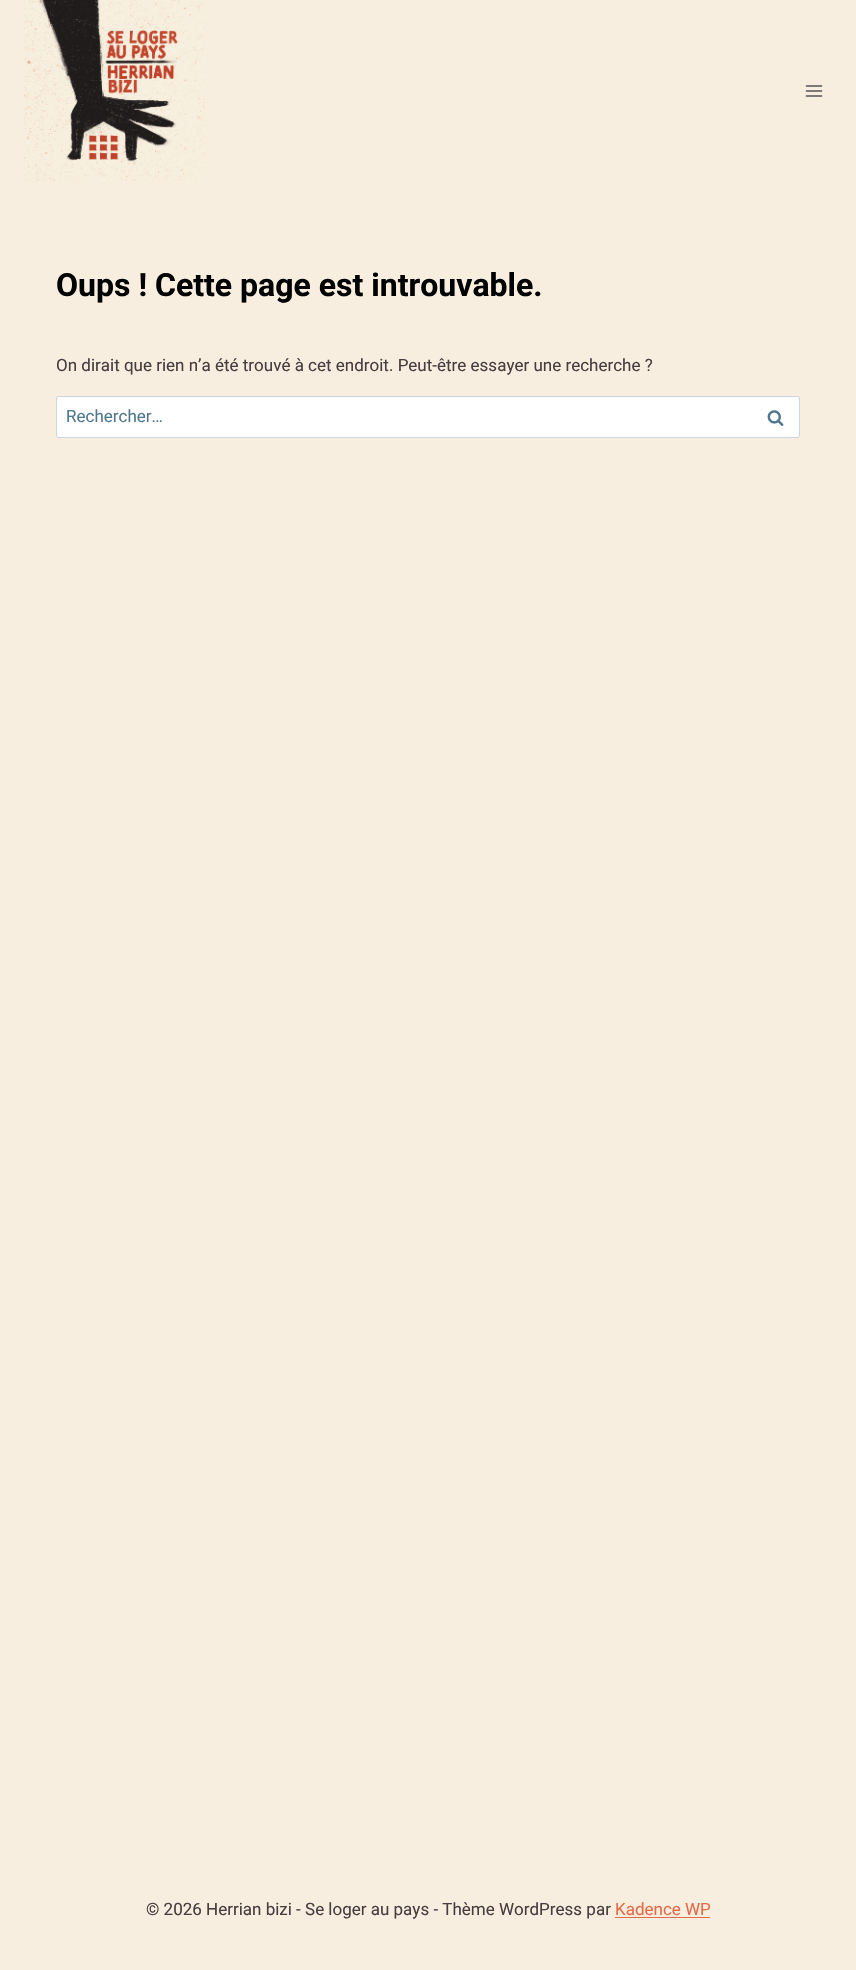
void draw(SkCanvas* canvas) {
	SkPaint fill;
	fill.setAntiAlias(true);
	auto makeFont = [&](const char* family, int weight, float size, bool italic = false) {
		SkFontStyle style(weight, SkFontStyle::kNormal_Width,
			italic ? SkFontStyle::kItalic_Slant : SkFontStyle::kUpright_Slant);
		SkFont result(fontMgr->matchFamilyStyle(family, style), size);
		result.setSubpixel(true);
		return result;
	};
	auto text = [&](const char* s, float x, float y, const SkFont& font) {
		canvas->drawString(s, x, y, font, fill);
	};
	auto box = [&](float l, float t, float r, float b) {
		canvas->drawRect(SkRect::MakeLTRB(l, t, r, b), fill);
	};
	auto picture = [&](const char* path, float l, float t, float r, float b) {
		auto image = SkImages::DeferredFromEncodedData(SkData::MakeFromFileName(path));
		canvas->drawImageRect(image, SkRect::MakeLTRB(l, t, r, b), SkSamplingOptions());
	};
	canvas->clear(0xFFF7EEDF);
	picture("image0.png", 24, 0, 205, 181);
	picture("image1.png", 805, 85, 823, 97);
	fill.setColor(0xFFFFFFFF);
	canvas->drawRoundRect(SkRect::MakeLTRB(56.5f, 396.5f, 799.5f, 437.5f), 2.5f, 2.5f, fill);
	fill.setStyle(SkPaint::kStroke_Style);
	fill.setStrokeWidth(1);
	fill.setColor(0xFFCBD5E0);
	canvas->drawRoundRect(SkRect::MakeLTRB(56.5f, 396.5f, 799.5f, 437.5f), 2.5f, 2.5f, fill);
	picture("image2.png", 767, 410, 784, 426);
	fill.setStyle(SkPaint::kFill_Style);
	fill.setColor(0xFFE56A48);
	box(615, 1917, 710, 1918);
	auto font1 = makeFont("Roboto", 700, 32);
	fill.setColor(0xFF010101);
	text("Oups ! Cette page est introuvable.", 56, 296, font1);
	auto font2 = makeFont("Roboto", 400, 17);
	fill.setColor(0xFF483D3F);
	text("On dirait que rien n’a été trouvé à cet endroit. Peut-être essayer une recherche ?", 56, 371, font2);
	fill.setColor(0xFF4F778E);
	text("Rechercher…", 66, 422, font2);
	fill.setColor(0xFF483D3F);
	text("© 2026 Herrian bizi - Se loger au pays - Thème WordPress par", 146, 1915, font2);
	fill.setColor(0xFFE56A48);
	text("Kadence WP", 615, 1915, font2);
}
